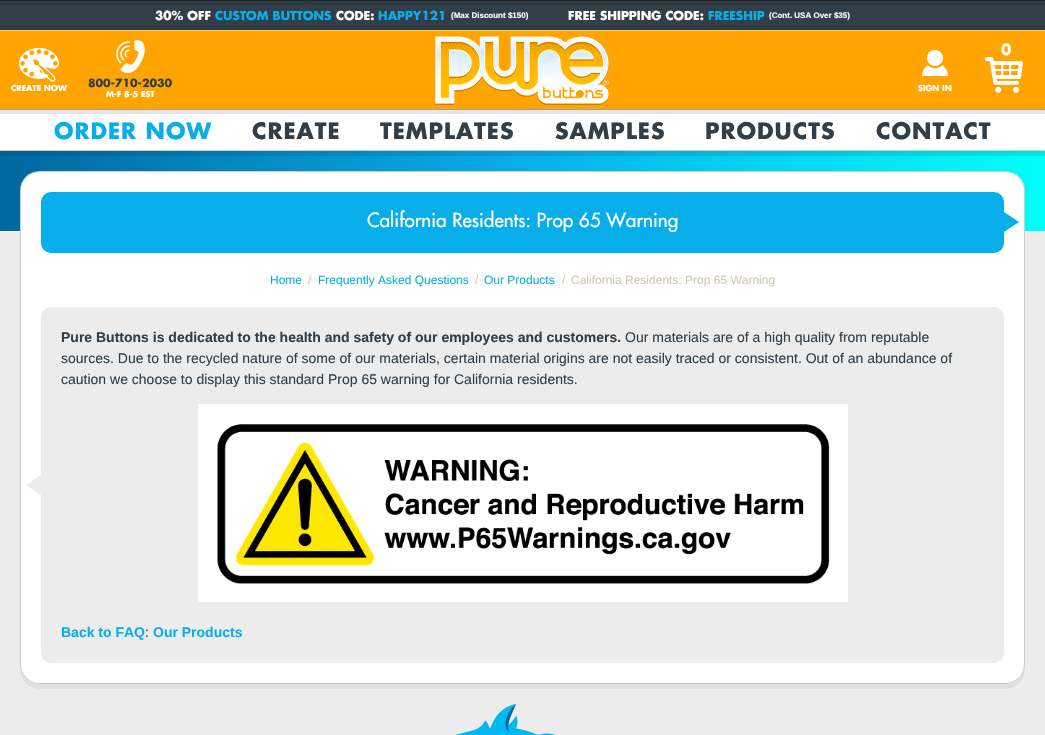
void draw(SkCanvas* canvas) {
	SkPaint fill;
	fill.setAntiAlias(true);
	auto makeFont = [&](const char* family, int weight, float size, bool italic = false) {
		SkFontStyle style(weight, SkFontStyle::kNormal_Width,
			italic ? SkFontStyle::kItalic_Slant : SkFontStyle::kUpright_Slant);
		SkFont result(fontMgr->matchFamilyStyle(family, style), size);
		result.setSubpixel(true);
		return result;
	};
	auto text = [&](const char* s, float x, float y, const SkFont& font) {
		canvas->drawString(s, x, y, font, fill);
	};
	auto spacedText = [&](const char* s, float x, float y, const SkFont& font, const SkPaint& ink, float letter, float word) {
		std::vector<SkGlyphID> glyphs(font.countText(s, strlen(s), SkTextEncoding::kUTF8));
		std::vector<float> xs(glyphs.size());
		font.textToGlyphs(s, strlen(s), SkTextEncoding::kUTF8, glyphs);
		font.getXPos(glyphs, xs, x);
		float extra = 0;
		for (size_t i = 0; i < glyphs.size(); i++) {
			xs[i] += extra;
			extra += letter + word * (glyphs[i] == font.unicharToGlyph(' '));
		}
		canvas->drawTextBlob(SkTextBlob::MakeFromPosHGlyphs(glyphs, xs, y, font), 0, 0, ink);
	};
	auto box = [&](float l, float t, float r, float b) {
		canvas->drawRect(SkRect::MakeLTRB(l, t, r, b), fill);
	};
	auto roundBox = [&](float l, float t, float r, float b, float radius) {
		canvas->drawRoundRect(SkRect::MakeLTRB(l, t, r, b), radius, radius, fill);
	};
	auto picture = [&](const char* path, float l, float t, float r, float b) {
		auto image = SkImages::DeferredFromEncodedData(SkData::MakeFromFileName(path));
		canvas->drawImageRect(image, SkRect::MakeLTRB(l, t, r, b), SkSamplingOptions());
	};
	canvas->clear(0xFFECECEC);
	fill.setColor(0xFF333F48);
	box(0, 5, 1045, 25);
	fill.setColor(0xFF2E3941);
	box(0, 25, 1045, 30);
	box(0, 1, 1045, 5);
	fill.setColor(0xFF1C2227);
	box(0, 0, 1045, 1);
	fill.setColor(0xFFFFD163);
	box(0, 30, 1045, 31);
	fill.setColor(0xFFFFA400);
	box(0, 31, 1045, 109);
	picture("image0.png", 435, 36, 609, 105);
	picture("image1.png", 985, 57, 1023, 93);
	picture("image2.png", 19, 48, 59, 82);
	picture("image3.png", 116, 40, 145, 73);
	picture("image4.png", 922, 50, 948, 76);
	fill.setColor(0xFFFFFFFF);
	box(0, 114, 1045, 150);
	fill.setColor(0xFFCCCCCC);
	box(0, 150, 1045, 151);
	fill.setColor(0xFFE6E6E6);
	box(0, 110, 1045, 114);
	fill.setColor(0xFFA1A1A1);
	box(0, 109, 1045, 110);
	fill.setColor(0xFFFFFFFF);
	box(0, 231, 1045, 232);
	{
		const SkColor colors[] = {0xFF00689D, 0xFF08AEEA};
		const float stops[] = {0, 1};
		const SkPoint ends[] = {{0, 191}, {523, 191}};
		fill.setShader(SkGradientShader::MakeLinear(ends, colors, stops, 2, SkTileMode::kClamp));
		fill.setAlpha(255);
	}
	box(0, 156, 523, 231);
	{
		const SkColor colors[] = {0xFF005E8D, 0xFF079DD3};
		const float stops[] = {0, 1};
		const SkPoint ends[] = {{0, 191}, {523, 191}};
		fill.setShader(SkGradientShader::MakeLinear(ends, colors, stops, 2, SkTileMode::kClamp));
		fill.setAlpha(255);
	}
	box(0, 151, 523, 156);
	{
		const SkColor colors[] = {0xFF08AEEA, 0xFF00FFF9};
		const float stops[] = {0, 1};
		const SkPoint ends[] = {{523, 191}, {1045, 191}};
		fill.setShader(SkGradientShader::MakeLinear(ends, colors, stops, 2, SkTileMode::kClamp));
		fill.setAlpha(255);
	}
	box(523, 156, 1045, 231);
	{
		const SkColor colors[] = {0xFF079DD3, 0xFF00E6E0};
		const float stops[] = {0, 1};
		const SkPoint ends[] = {{523, 191}, {1045, 191}};
		fill.setShader(SkGradientShader::MakeLinear(ends, colors, stops, 2, SkTileMode::kClamp));
		fill.setAlpha(255);
	}
	box(523, 151, 1045, 156);
	fill.setShader(nullptr);
	fill.setColor(0xFFE0E0E0);
	canvas->drawPath(SkPathBuilder().moveTo(20, 664).lineTo(20, 669).cubicTo(20, 680, 29, 689, 40, 689).lineTo(1005, 689).cubicTo(1016, 689, 1025, 680, 1025, 669).lineTo(1025, 664).cubicTo(1025, 675, 1016, 684, 1005, 684).lineTo(40, 684).cubicTo(29, 684, 20, 675, 20, 664).close().detach(), fill);
	fill.setColor(0xFFFFFFFF);
	roundBox(20, 171, 1025, 684, 20);
	fill.setStyle(SkPaint::kStroke_Style);
	fill.setStrokeWidth(1);
	fill.setColor(0x33000000);
	canvas->drawRoundRect(SkRect::MakeLTRB(20.5f, 171.5f, 1024.5f, 683.5f), 19.5f, 19.5f, fill);
	fill.setStyle(SkPaint::kFill_Style);
	fill.setColor(0xFF08AEEA);
	roundBox(41, 192, 1004, 253, 10);
	canvas->drawPath(SkPathBuilder().moveTo(1004, 232).lineTo(1004, 212).lineTo(1019, 222).close().detach(), fill);
	fill.setColor(0xFFECECEC);
	roundBox(41, 307, 1004, 663, 10);
	canvas->drawPath(SkPathBuilder().moveTo(41, 475).lineTo(41, 495).lineTo(26, 485).close().detach(), fill);
	picture("image5.png", 198, 404, 848, 602);
	picture("image6.png", 456, 704, 555, 735);
	auto font1 = makeFont("Futura", 700, 12);
	fill.setColor(0xFFFFFFFF);
	text("30% OFF", 155, 20, font1);
	fill.setColor(0xFF08AEEA);
	text("CUSTOM BUTTONS", 215, 20, font1);
	fill.setColor(0xFFFFFFFF);
	text("CODE:", 336, 20, font1);
	fill.setColor(0xFF08AEEA);
	text("HAPPY121", 378, 20, font1);
	auto font2 = makeFont("Liberation Sans", 700, 8);
	fill.setColor(0xFFFFFFFF);
	text("(Max Discount $150)", 451, 18, font2);
	text("FREE SHIPPING CODE:", 568, 20, font1);
	fill.setColor(0xFF08AEEA);
	text("FREESHIP", 708, 20, font1);
	fill.setColor(0xFFFFFFFF);
	text("(Cont. USA Over $35)", 769, 18, font2);
	auto font3 = makeFont("Futura", 700, 15);
	text("0", 1001, 55, font3);
	auto font4 = makeFont("Futura", 700, 8);
	text("CREATE NOW", 11, 91, font4);
	auto font5 = makeFont("Futura", 700, 11);
	fill.setColor(0xFF333F48);
	text("800-710-2030", 88, 87, font5);
	fill.setColor(0xFFFFFFFF);
	text("M-F 8-5 EST", 106, 97, font4);
	text("SIGN IN", 918, 91, font4);
	auto font6 = makeFont("Futura", 700, 22);
	fill.setColor(0xFF08AEEA);
	spacedText("ORDER NOW", 54, 139, font6, fill, 1, 0);
	fill.setColor(0xFF333F48);
	spacedText("CREATE", 252, 139, font6, fill, 1, 0);
	spacedText("TEMPLATES", 380, 139, font6, fill, 1, 0);
	spacedText("SAMPLES", 555, 139, font6, fill, 1, 0);
	spacedText("PRODUCTS", 705, 139, font6, fill, 1, 0);
	spacedText("CONTACT", 876, 139, font6, fill, 1, 0);
	auto font7 = makeFont("Futura", 500, 19);
	fill.setColor(0xFFFFFFFF);
	text("California Residents: Prop 65 Warning", 367, 227, font7);
	auto font8 = makeFont("Liberation Sans", 400, 12);
	fill.setColor(0xFF08AEEA);
	text("Home", 270, 284, font8);
	fill.setColor(0xFFD0CAB4);
	text("/", 308, 284, font8);
	fill.setColor(0xFF08AEEA);
	text("Frequently Asked Questions", 318, 284, font8);
	fill.setColor(0xFFD0CAB4);
	text("/", 475, 284, font8);
	fill.setColor(0xFF08AEEA);
	text("Our Products", 484, 284, font8);
	fill.setColor(0xFFD0CAB4);
	text("/", 562, 284, font8);
	text("California Residents: Prop 65 Warning", 571, 284, font8);
	auto font9 = makeFont("Liberation Sans", 700, 14);
	fill.setColor(0xFF333F48);
	text("Pure Buttons is dedicated to the health and safety of our employees and customers.", 61, 342, font9);
	auto font10 = makeFont("Liberation Sans", 400, 14);
	text("Our materials are of a high quality from reputable", 625, 342, font10);
	text("sources. Due to the recycled nature of some of our materials, certain material origins are not easily traced or consistent. Out of an abundance of", 61, 363, font10);
	text("caution we choose to display this standard Prop 65 warning for California residents.", 61, 384, font10);
	fill.setColor(0xFF08AEEA);
	text("Back to FAQ", 61, 637, font9);
	fill.setColor(0xFF333F48);
	text(":", 145, 637, font10);
	fill.setColor(0xFF08AEEA);
	text("Our Products", 153, 637, font9);
}
